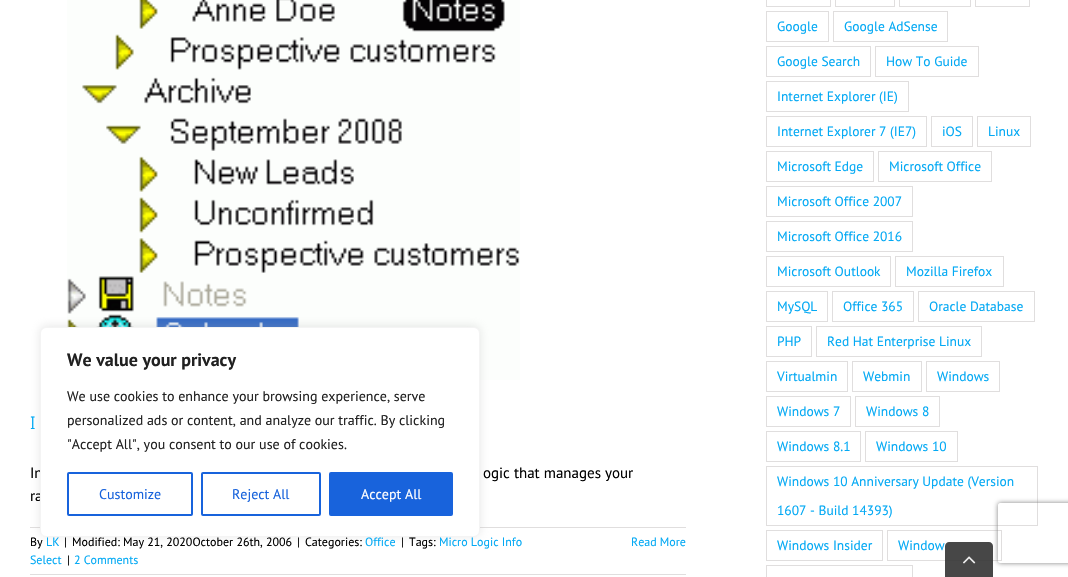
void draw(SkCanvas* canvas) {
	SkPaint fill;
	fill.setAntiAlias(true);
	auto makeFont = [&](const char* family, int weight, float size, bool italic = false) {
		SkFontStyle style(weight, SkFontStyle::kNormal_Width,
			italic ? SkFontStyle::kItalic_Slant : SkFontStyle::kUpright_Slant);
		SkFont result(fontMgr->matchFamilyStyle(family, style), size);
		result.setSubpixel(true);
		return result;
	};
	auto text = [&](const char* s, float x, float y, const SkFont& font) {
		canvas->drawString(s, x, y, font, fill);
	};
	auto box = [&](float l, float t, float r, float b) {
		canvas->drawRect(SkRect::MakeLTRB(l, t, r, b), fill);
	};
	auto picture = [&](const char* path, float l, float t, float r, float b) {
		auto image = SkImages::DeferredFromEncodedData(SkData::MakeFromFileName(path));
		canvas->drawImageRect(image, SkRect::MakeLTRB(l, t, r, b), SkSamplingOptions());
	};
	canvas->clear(0xFFFFFFFF);
	picture("image0.png", 67, 0, 520, 380);
	fill.setColor(0xFFE0DEDE);
	box(30, 527, 686, 528);
	box(30, 574, 686, 575);
	fill.setStyle(SkPaint::kStroke_Style);
	fill.setStrokeWidth(1);
	canvas->drawRect(SkRect::MakeLTRB(766.5f, -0.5f, 830.5f, 6.5f), fill);
	canvas->drawRect(SkRect::MakeLTRB(835.5f, -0.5f, 894.5f, 6.5f), fill);
	canvas->drawRect(SkRect::MakeLTRB(899.5f, -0.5f, 970.5f, 6.5f), fill);
	canvas->drawRect(SkRect::MakeLTRB(975.5f, -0.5f, 1029.5f, 6.5f), fill);
	canvas->drawRect(SkRect::MakeLTRB(766.5f, 11.5f, 828.5f, 41.5f), fill);
	canvas->drawRect(SkRect::MakeLTRB(833.5f, 11.5f, 947.5f, 41.5f), fill);
	canvas->drawRect(SkRect::MakeLTRB(766.5f, 46.5f, 870.5f, 76.5f), fill);
	canvas->drawRect(SkRect::MakeLTRB(875.5f, 46.5f, 978.5f, 76.5f), fill);
	canvas->drawRect(SkRect::MakeLTRB(766.5f, 81.5f, 908.5f, 111.5f), fill);
	canvas->drawRect(SkRect::MakeLTRB(766.5f, 116.5f, 926.5f, 146.5f), fill);
	canvas->drawRect(SkRect::MakeLTRB(931.5f, 116.5f, 972.5f, 146.5f), fill);
	canvas->drawRect(SkRect::MakeLTRB(977.5f, 116.5f, 1030.5f, 146.5f), fill);
	canvas->drawRect(SkRect::MakeLTRB(766.5f, 151.5f, 873.5f, 181.5f), fill);
	canvas->drawRect(SkRect::MakeLTRB(878.5f, 151.5f, 991.5f, 181.5f), fill);
	canvas->drawRect(SkRect::MakeLTRB(766.5f, 186.5f, 912.5f, 216.5f), fill);
	canvas->drawRect(SkRect::MakeLTRB(766.5f, 221.5f, 912.5f, 251.5f), fill);
	canvas->drawRect(SkRect::MakeLTRB(766.5f, 256.5f, 890.5f, 286.5f), fill);
	canvas->drawRect(SkRect::MakeLTRB(895.5f, 256.5f, 1003.5f, 286.5f), fill);
	canvas->drawRect(SkRect::MakeLTRB(766.5f, 291.5f, 827.5f, 321.5f), fill);
	canvas->drawRect(SkRect::MakeLTRB(832.5f, 291.5f, 913.5f, 321.5f), fill);
	canvas->drawRect(SkRect::MakeLTRB(918.5f, 291.5f, 1034.5f, 321.5f), fill);
	canvas->drawRect(SkRect::MakeLTRB(766.5f, 326.5f, 811.5f, 356.5f), fill);
	canvas->drawRect(SkRect::MakeLTRB(816.5f, 326.5f, 981.5f, 356.5f), fill);
	canvas->drawRect(SkRect::MakeLTRB(766.5f, 361.5f, 847.5f, 391.5f), fill);
	canvas->drawRect(SkRect::MakeLTRB(852.5f, 361.5f, 921.5f, 391.5f), fill);
	canvas->drawRect(SkRect::MakeLTRB(926.5f, 361.5f, 999.5f, 391.5f), fill);
	canvas->drawRect(SkRect::MakeLTRB(766.5f, 396.5f, 850.5f, 426.5f), fill);
	canvas->drawRect(SkRect::MakeLTRB(855.5f, 396.5f, 939.5f, 426.5f), fill);
	canvas->drawRect(SkRect::MakeLTRB(766.5f, 431.5f, 860.5f, 461.5f), fill);
	canvas->drawRect(SkRect::MakeLTRB(865.5f, 431.5f, 957.5f, 461.5f), fill);
	canvas->drawRect(SkRect::MakeLTRB(766.5f, 466.5f, 1037.5f, 525.5f), fill);
	canvas->drawRect(SkRect::MakeLTRB(766.5f, 530.5f, 882.5f, 560.5f), fill);
	canvas->drawRect(SkRect::MakeLTRB(887.5f, 530.5f, 1001.5f, 560.5f), fill);
	canvas->drawRect(SkRect::MakeLTRB(766.5f, 565.5f, 912.5f, 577.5f), fill);
	fill.setStyle(SkPaint::kFill_Style);
	fill.setColor(0x4DACABAB);
	fill.setMaskFilter(SkMaskFilter::MakeBlur(kNormal_SkBlurStyle, 5));
	canvas->drawRoundRect(SkRect::MakeLTRB(40, 326, 480, 536), 6, 6, fill);
	fill.setMaskFilter(nullptr);
	canvas->save();
	canvas->clipPath(SkPathBuilder(SkPathFillType::kEvenOdd).moveTo(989, 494).lineTo(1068, 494).lineTo(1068, 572).lineTo(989, 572).close().moveTo(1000, 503).lineTo(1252, 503).cubicTo(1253, 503, 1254, 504, 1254, 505).lineTo(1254, 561).cubicTo(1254, 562, 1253, 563, 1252, 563).lineTo(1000, 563).cubicTo(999, 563, 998, 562, 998, 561).lineTo(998, 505).cubicTo(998, 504, 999, 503, 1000, 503).close().detach(), true);
	fill.setColor(0xFF808080);
	fill.setMaskFilter(SkMaskFilter::MakeBlur(kNormal_SkBlurStyle, 2.5f));
	canvas->drawRoundRect(SkRect::MakeLTRB(998, 503, 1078, 563), 2, 2, fill);
	fill.setMaskFilter(nullptr);
	canvas->restore();
	fill.setColor(0xE6333333);
	canvas->drawPath(SkPathBuilder().moveTo(949, 542).lineTo(989, 542).cubicTo(991, 542, 993, 544, 993, 546).lineTo(993, 577).lineTo(945, 577).lineTo(945, 546).cubicTo(945, 544, 947, 542, 949, 542).close().detach(), fill);
	picture("image1.png", 963, 556, 976, 564);
	auto font1 = makeFont("Antic Slab", 400, 18);
	fill.setColor(0xFF03A9F4);
	text("I", 30, 429, font1);
	auto font2 = makeFont("PT Sans", 400, 15);
	fill.setColor(0xFF000000);
	text("In", 30, 478, font2);
	text("ogic that manages your", 483, 478, font2);
	text("ra", 30, 501, font2);
	auto font3 = makeFont("PT Sans", 400, 12);
	text("By", 30, 546, font3);
	fill.setColor(0xFF03A9F4);
	text("LK", 46, 546, font3);
	fill.setColor(0xFF000000);
	text("|", 64, 546, font3);
	text("Modified: May 21, 2020October 26th, 2006", 72, 546, font3);
	text("|", 297, 546, font3);
	text("Categories:", 305, 546, font3);
	fill.setColor(0xFF03A9F4);
	text("Office", 365, 546, font3);
	fill.setColor(0xFF000000);
	text("|", 401, 546, font3);
	text("Tags:", 409, 546, font3);
	fill.setColor(0xFF03A9F4);
	text("Micro Logic Info", 439, 546, font3);
	text("Select", 30, 564, font3);
	fill.setColor(0xFF000000);
	text("|", 67, 564, font3);
	fill.setColor(0xFF03A9F4);
	text("2 Comments", 74, 564, font3);
	text("Read More", 631, 546, font3);
	auto font4 = makeFont("PT Sans", 400, 13.5f);
	text("Google", 777, 31, font4);
	text("Google AdSense", 844, 31, font4);
	text("Google Search", 777, 66, font4);
	text("How To Guide", 886, 66, font4);
	text("Internet Explorer (IE)", 777, 101, font4);
	text("Internet Explorer 7 (IE7)", 777, 136, font4);
	text("iOS", 942, 136, font4);
	text("Linux", 988, 136, font4);
	text("Microsoft Edge", 777, 171, font4);
	text("Microsoft Office", 889, 171, font4);
	text("Microsoft Office 2007", 777, 206, font4);
	text("Microsoft Office 2016", 777, 241, font4);
	text("Microsoft Outlook", 777, 276, font4);
	text("Mozilla Firefox", 906, 276, font4);
	text("MySQL", 777, 311, font4);
	text("Office 365", 843, 311, font4);
	text("Oracle Database", 929, 311, font4);
	text("PHP", 777, 346, font4);
	text("Red Hat Enterprise Linux", 827, 346, font4);
	text("Virtualmin", 777, 381, font4);
	text("Webmin", 863, 381, font4);
	text("Windows", 937, 381, font4);
	text("Windows 7", 777, 416, font4);
	text("Windows 8", 866, 416, font4);
	text("Windows 8.1", 777, 451, font4);
	text("Windows 10", 876, 451, font4);
	text("Windows 10 Anniversary Update (Version", 777, 486, font4);
	text("1607 - Build 14393)", 777, 515, font4);
	text("Windows Insider", 777, 550, font4);
	text("Window", 898, 550, font4);
	fill.setColor(0xFFFFFFFF);
	canvas->drawRoundRect(SkRect::MakeLTRB(40.5f, 327.5f, 479.5f, 536.5f), 5.5f, 5.5f, fill);
	fill.setStyle(SkPaint::kStroke_Style);
	fill.setColor(0xFFF4F4F4);
	canvas->drawRoundRect(SkRect::MakeLTRB(40.5f, 327.5f, 479.5f, 536.5f), 5.5f, 5.5f, fill);
	auto font5 = makeFont("PT Sans", 700, 18);
	fill.setStyle(SkPaint::kFill_Style);
	fill.setColor(0xFF212121);
	text("We value your privacy", 67, 366, font5);
	auto font6 = makeFont("PT Sans", 400, 14);
	text("We use cookies to enhance your browsing experience, serve", 67, 401, font6);
	text("personalized ads or content, and analyze our traffic. By clicking", 67, 425, font6);
	text("\"Accept All\", you consent to our use of cookies.", 67, 449, font6);
	fill.setStyle(SkPaint::kStroke_Style);
	fill.setStrokeWidth(2);
	fill.setColor(0xFF1863DC);
	canvas->drawRoundRect(SkRect::MakeLTRB(68, 473, 192, 515), 1, 1, fill);
	fill.setStyle(SkPaint::kFill_Style);
	text("Customize", 99, 499, font6);
	fill.setStyle(SkPaint::kStroke_Style);
	canvas->drawRoundRect(SkRect::MakeLTRB(202, 473, 320, 515), 1, 1, fill);
	fill.setStyle(SkPaint::kFill_Style);
	text("Reject All", 232, 499, font6);
	canvas->drawRoundRect(SkRect::MakeLTRB(330, 473, 452, 515), 1, 1, fill);
	fill.setStyle(SkPaint::kStroke_Style);
	canvas->drawRoundRect(SkRect::MakeLTRB(330, 473, 452, 515), 1, 1, fill);
	fill.setStyle(SkPaint::kFill_Style);
	fill.setColor(0xFFFFFFFF);
	text("Accept All", 361, 499, font6);
}
